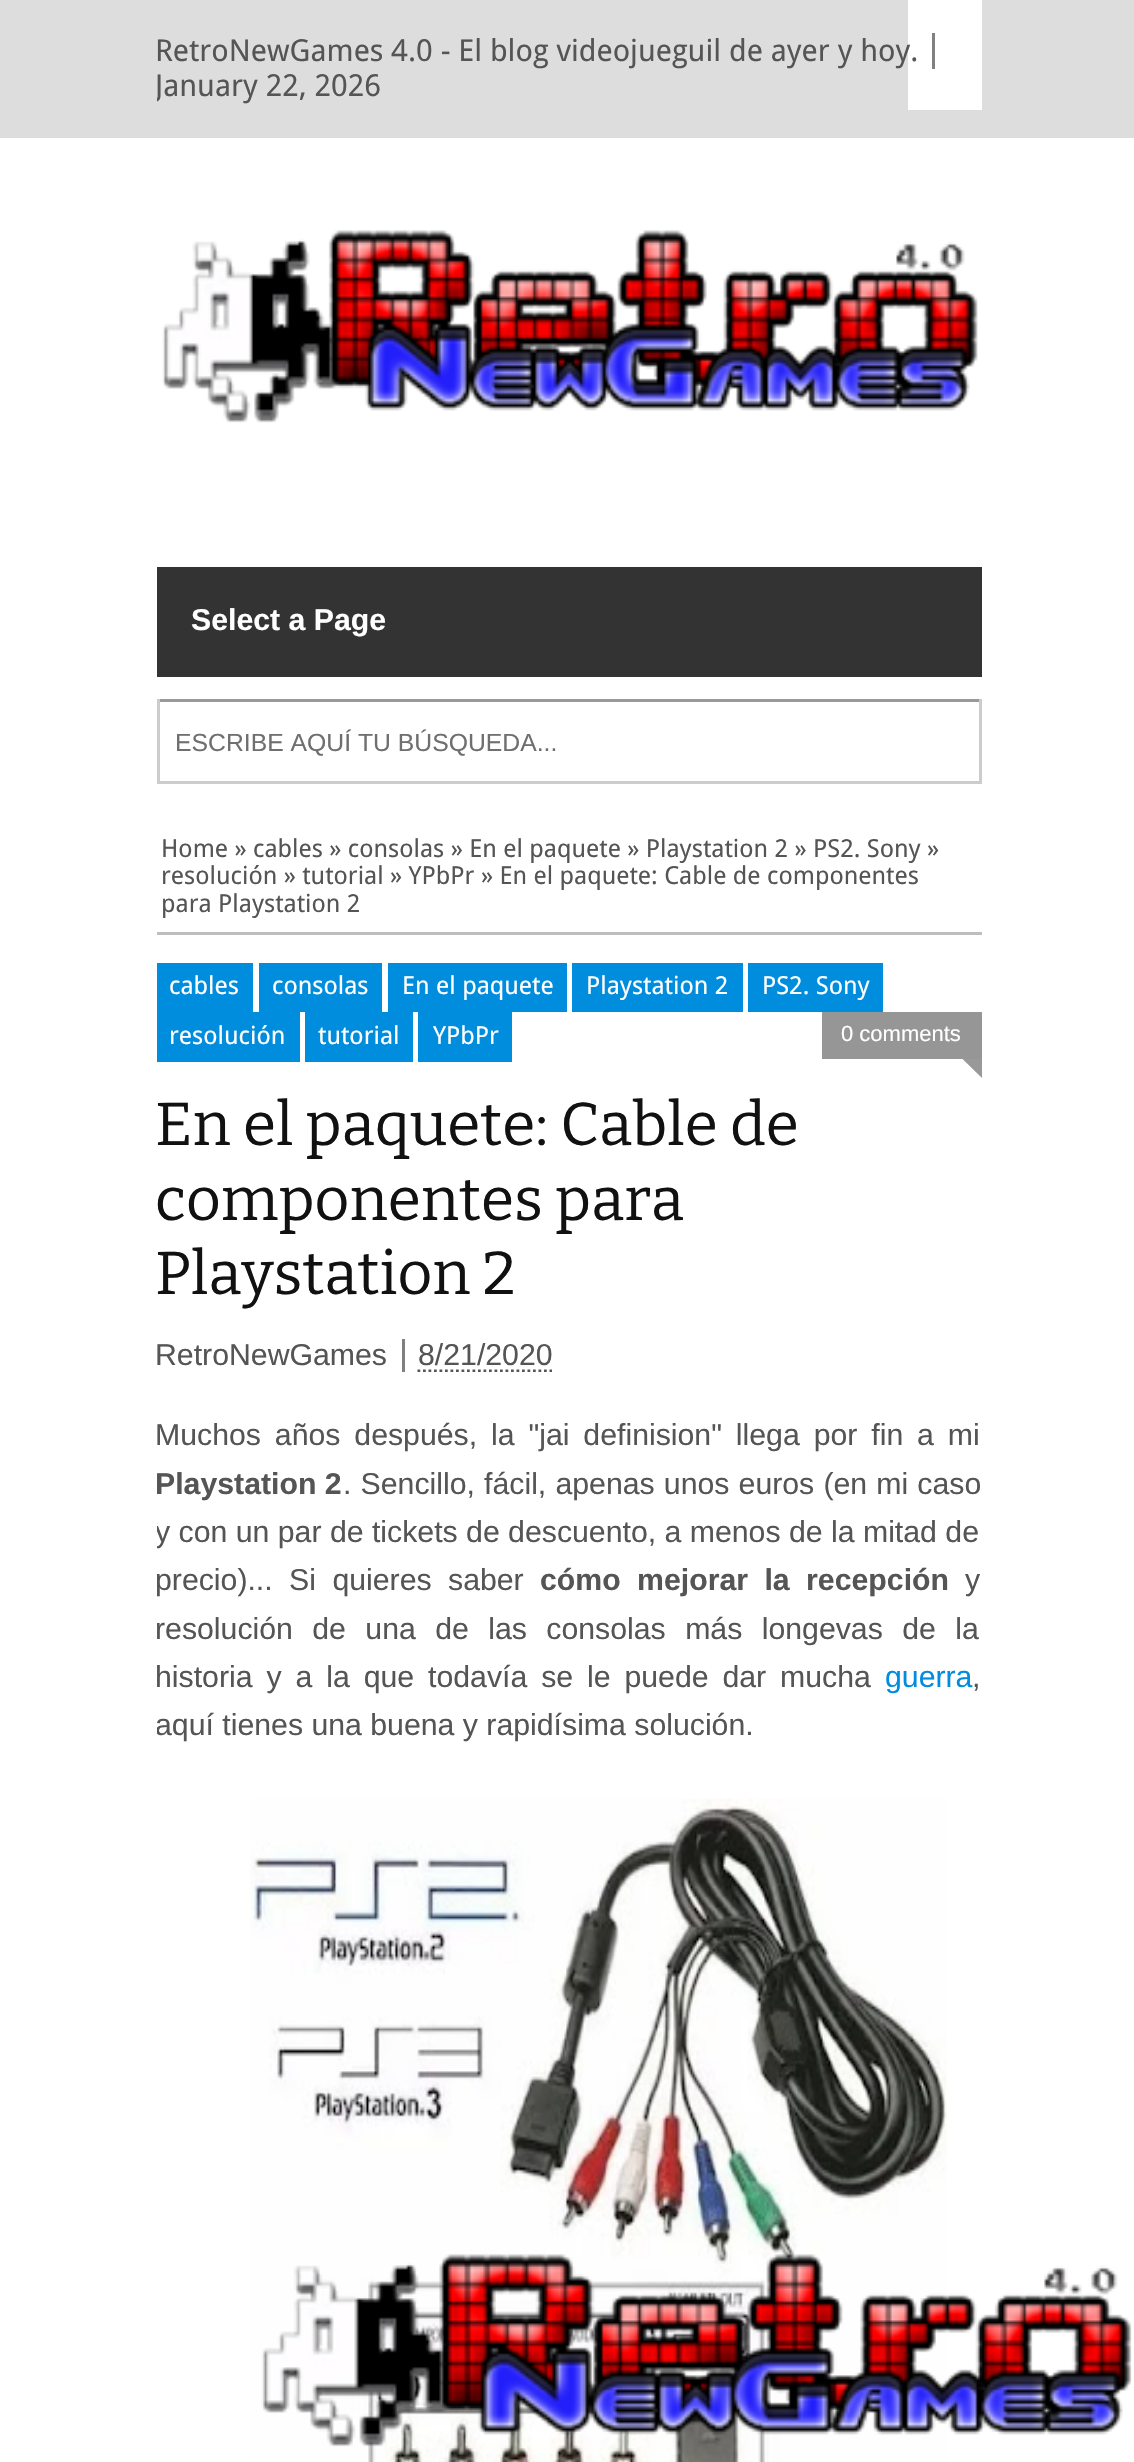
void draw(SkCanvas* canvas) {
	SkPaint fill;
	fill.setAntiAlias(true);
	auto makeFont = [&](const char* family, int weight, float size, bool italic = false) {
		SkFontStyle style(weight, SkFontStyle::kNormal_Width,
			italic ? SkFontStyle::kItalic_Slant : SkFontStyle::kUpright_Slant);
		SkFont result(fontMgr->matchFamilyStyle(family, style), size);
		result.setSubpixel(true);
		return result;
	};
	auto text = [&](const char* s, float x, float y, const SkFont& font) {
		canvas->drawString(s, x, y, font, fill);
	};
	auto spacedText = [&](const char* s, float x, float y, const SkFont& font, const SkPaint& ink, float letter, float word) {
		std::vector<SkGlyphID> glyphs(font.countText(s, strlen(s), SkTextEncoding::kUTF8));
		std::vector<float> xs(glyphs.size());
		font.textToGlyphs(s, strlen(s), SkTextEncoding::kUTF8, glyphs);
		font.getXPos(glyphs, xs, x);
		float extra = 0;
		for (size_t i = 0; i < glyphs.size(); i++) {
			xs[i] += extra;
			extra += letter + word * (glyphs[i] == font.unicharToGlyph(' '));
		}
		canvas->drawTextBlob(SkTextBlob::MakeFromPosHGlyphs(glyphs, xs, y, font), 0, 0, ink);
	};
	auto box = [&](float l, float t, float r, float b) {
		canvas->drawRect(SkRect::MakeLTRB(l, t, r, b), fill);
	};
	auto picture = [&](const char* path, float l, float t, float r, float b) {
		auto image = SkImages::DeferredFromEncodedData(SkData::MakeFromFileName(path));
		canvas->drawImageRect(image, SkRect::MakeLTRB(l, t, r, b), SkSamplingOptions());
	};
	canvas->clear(0xFFFFFFFF);
	fill.setColor(0xFFDDDDDD);
	box(0, 0, 1134, 138);
	fill.setColor(0xFFFFFFFF);
	box(908, 0, 982, 110);
	fill.setColor(0xFF818181);
	box(932, 33, 935, 69);
	picture("image0.png", 162, 230, 978, 423);
	fill.setColor(0xFF333333);
	box(157, 567, 982, 677);
	fill.setColor(0xFF999999);
	box(157, 699, 982, 702);
	fill.setColor(0xFFCCCCCC);
	box(979, 699, 982, 784);
	box(157, 781, 982, 784);
	box(157, 699, 160, 784);
	fill.setColor(0xFFBEBEBE);
	box(157, 932, 982, 935);
	fill.setColor(0xFF008DDD);
	box(157, 963, 253, 1012);
	box(259, 963, 382, 1012);
	box(388, 963, 567, 1012);
	box(572, 963, 743, 1012);
	box(748, 963, 883, 1012);
	box(157, 1012, 300, 1062);
	box(305, 1012, 413, 1062);
	box(418, 1012, 512, 1062);
	fill.setColor(0xFF969696);
	box(822, 1012, 982, 1059);
	fill.setColor(0xFF999999);
	canvas->drawPath(SkPathBuilder().moveTo(982, 1059).lineTo(982, 1078).lineTo(962.5f, 1059).close().detach(), fill);
	fill.setColor(0xFF808080);
	box(402, 1339, 405, 1372);
	canvas->save();
	canvas->clipRect(SkRect::MakeLTRB(157, 1339, 553, 1372));
	fill.setStyle(SkPaint::kStroke_Style);
	fill.setStrokeWidth(2.8f);
	fill.setColor(0xFF555555);
	fill.setPathEffect(SkDashPathEffect::Make({{2.75f, 2.75f}}, 0));
	canvas->drawPath(SkPathBuilder().moveTo(417.5f, 1371).lineTo(552, 1371).detach(), fill);
	fill.setPathEffect(nullptr);
	canvas->restore();
	picture("image1.png", 250, 1798, 947, 2462);
	picture("image2.png", 261, 2254, 1132, 2447);
	auto font1 = makeFont("Droid Sans", 400, 30.25f);
	fill.setStyle(SkPaint::kFill_Style);
	text("RetroNewGames 4.0 - El blog videojueguil de ayer y hoy.", 155, 61, font1);
	canvas->save();
	canvas->clipRect(SkRect::MakeLTRB(157, 0, 982, 138));
	text("January 22, 2026", 155, 96, font1);
	canvas->restore();
	auto font2 = makeFont("Liberation Sans", 700, 30.25f);
	fill.setColor(0xFFFFFFFF);
	text("Select a Page", 191, 630, font2);
	auto font3 = makeFont("Liberation Sans", 400, 24.75f);
	fill.setColor(0xFF6F6F6F);
	text("ESCRIBE AQUÍ TU BÚSQUEDA...", 175, 751, font3);
	auto font4 = makeFont("Droid Sans", 400, 24.75f);
	fill.setColor(0xFF555555);
	text("Home » cables » consolas » En el paquete » Playstation 2 » PS2. Sony »", 161, 857, font4);
	text("resolución » tutorial » YPbPr » En el paquete: Cable de componentes", 161, 884, font4);
	text("para Playstation 2", 161, 912, font4);
	fill.setColor(0xFFFFFFFF);
	text("cables", 169, 994, font4);
	text("consolas", 272, 994, font4);
	text("En el paquete", 402, 994, font4);
	text("Playstation 2", 586, 994, font4);
	text("PS2. Sony", 762, 994, font4);
	text("resolución", 169, 1044, font4);
	text("tutorial", 318, 1044, font4);
	text("YPbPr", 433, 1044, font4);
	auto font5 = makeFont("Liberation Sans", 400, 22);
	text("0 comments", 841, 1041, font5);
	auto font6 = makeFont("Bitter", 100, 60.5f);
	fill.setColor(0xFF111111);
	text("En el paquete: Cable de", 155, 1145, font6);
	text("componentes para", 155, 1220, font6);
	text("Playstation 2", 155, 1294, font6);
	auto font7 = makeFont("Liberation Sans", 400, 30.25f);
	fill.setColor(0xFF555555);
	text("RetroNewGames", 155, 1365, font7);
	text("8/21/2020", 418, 1365, font7);
	spacedText("Muchos años después, la \"jai definision\" llega por fin a mi", 155, 1445, font7, fill, 0, 5.5f);
	text("Playstation 2", 155, 1494, font2);
	spacedText(". Sencillo, fácil, apenas unos euros (en mi caso", 343, 1494, font7, fill, 0, 0.75f);
	canvas->save();
	canvas->clipRect(SkRect::MakeLTRB(157, 806, 982, 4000));
	text("y con un par de tickets de descuento, a menos de la mitad de", 155, 1542, font7);
	canvas->restore();
	spacedText("precio)... Si quieres saber", 155, 1590, font7, fill, 0, 8);
	spacedText("cómo mejorar la recepción", 540, 1590, font2, fill, 0, 8);
	text("y", 965, 1590, font7);
	spacedText("resolución de una de las consolas más longevas de la", 155, 1639, font7, fill, 0, 11);
	spacedText("historia y a la que todavía se le puede dar mucha", 155, 1687, font7, fill, 0, 5.5f);
	fill.setColor(0xFF008DDD);
	text("guerra", 885, 1687, font7);
	fill.setColor(0xFF555555);
	text(",", 972, 1687, font7);
	canvas->save();
	canvas->clipRect(SkRect::MakeLTRB(157, 806, 982, 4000));
	text("aquí tienes una buena y rapidísima solución.", 155, 1735, font7);
	canvas->restore();
}
